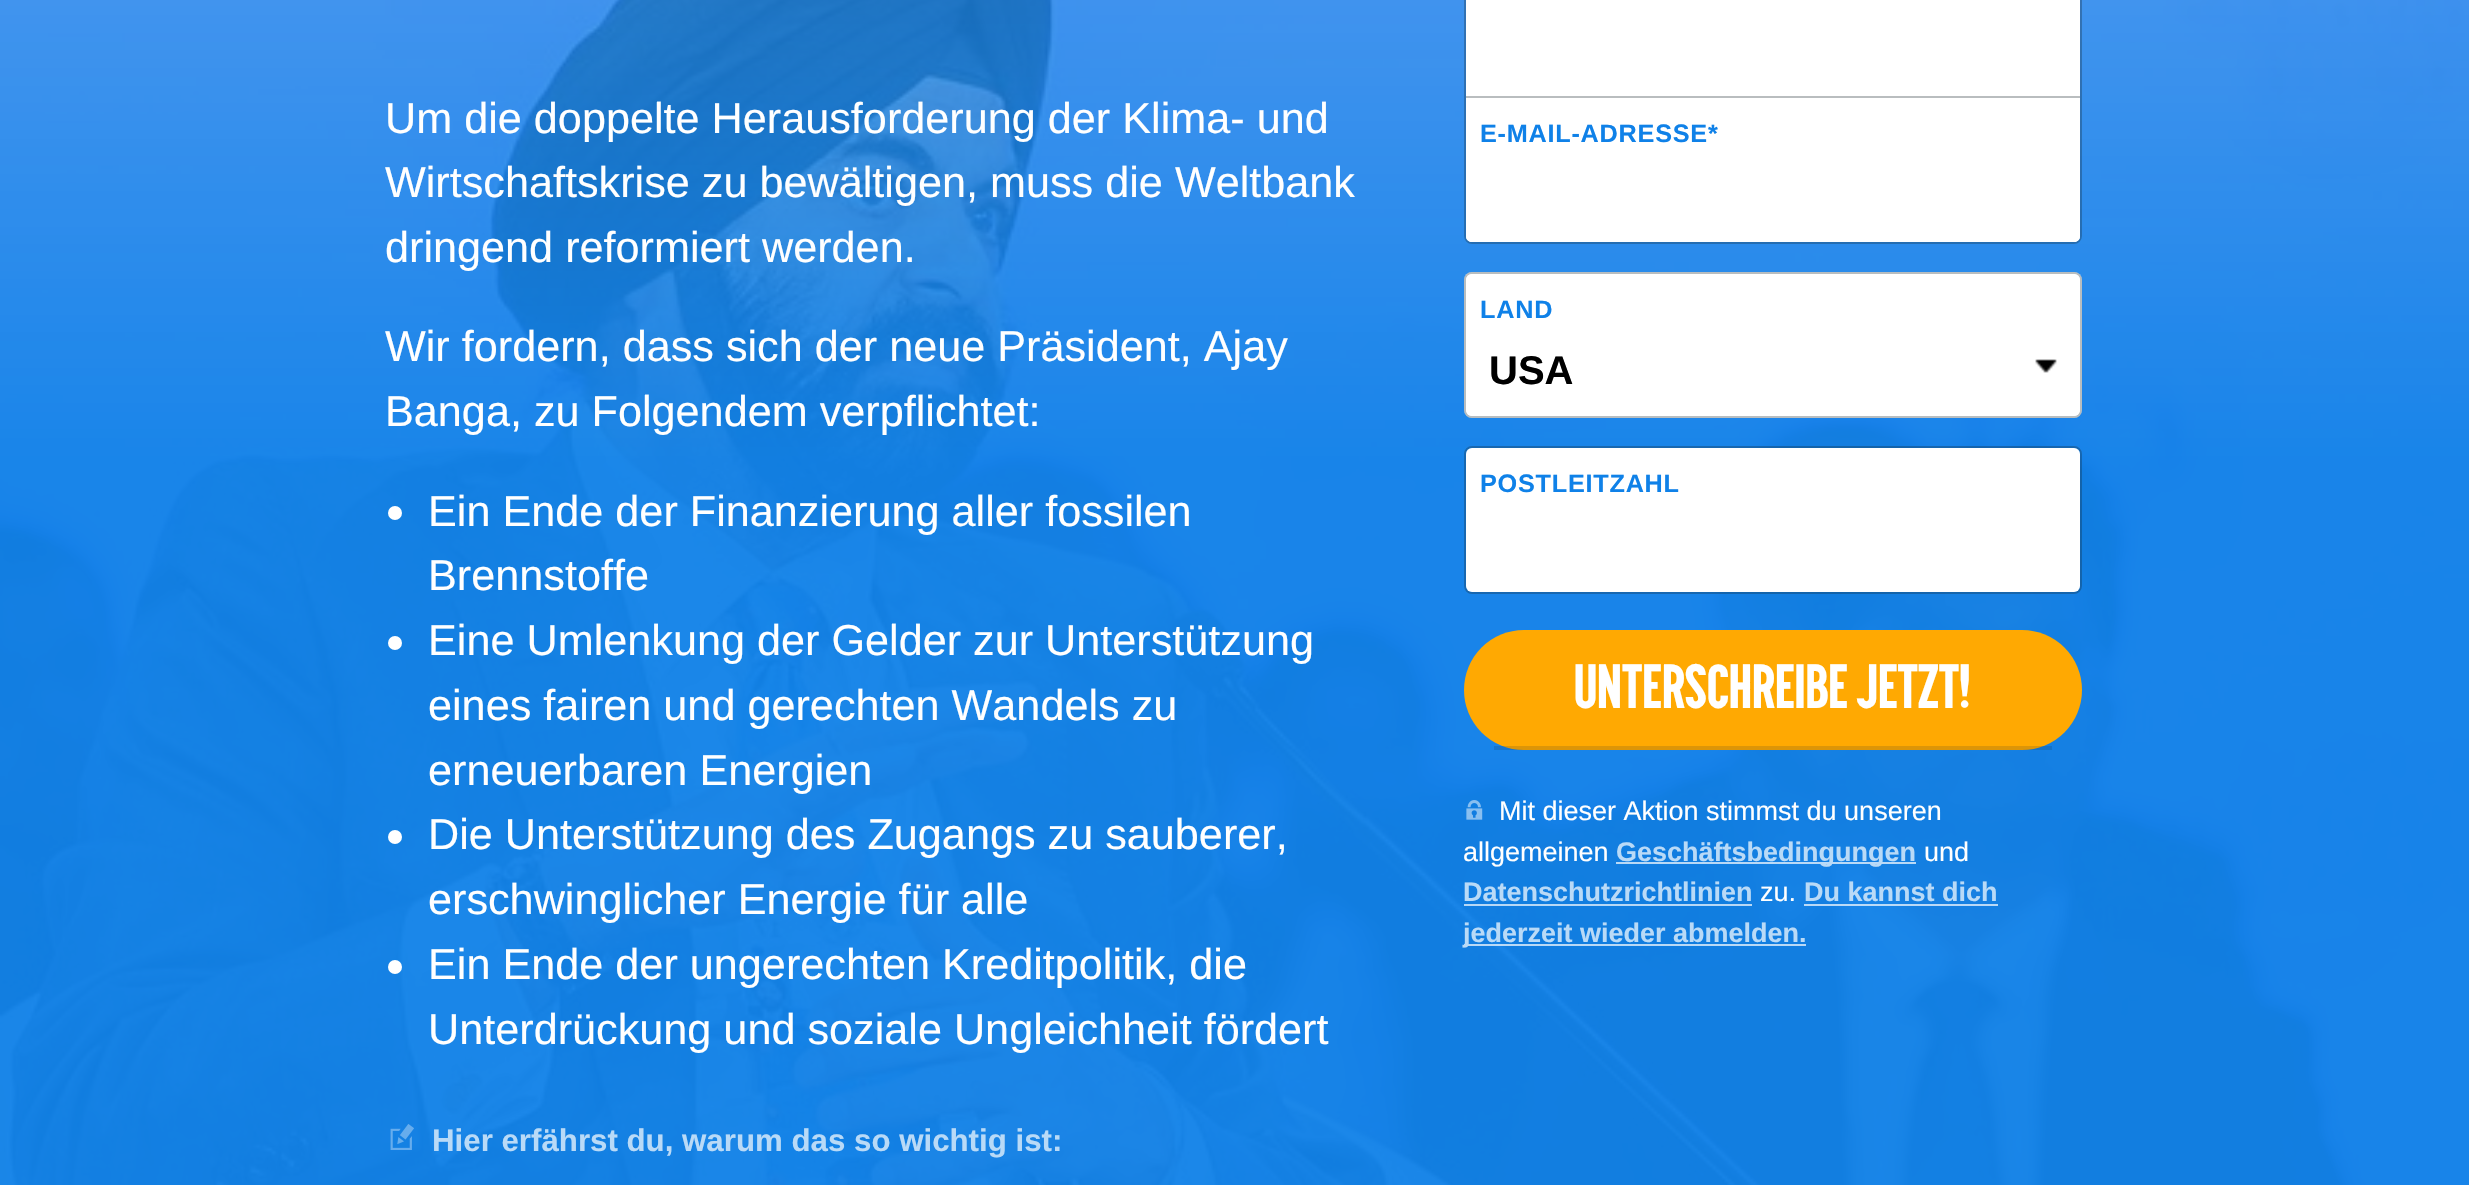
void draw(SkCanvas* canvas) {
	SkPaint fill;
	fill.setAntiAlias(true);
	auto makeFont = [&](const char* family, int weight, float size, bool italic = false) {
		SkFontStyle style(weight, SkFontStyle::kNormal_Width,
			italic ? SkFontStyle::kItalic_Slant : SkFontStyle::kUpright_Slant);
		SkFont result(fontMgr->matchFamilyStyle(family, style), size);
		result.setSubpixel(true);
		return result;
	};
	auto text = [&](const char* s, float x, float y, const SkFont& font) {
		canvas->drawString(s, x, y, font, fill);
	};
	auto spacedText = [&](const char* s, float x, float y, const SkFont& font, const SkPaint& ink, float letter, float word) {
		std::vector<SkGlyphID> glyphs(font.countText(s, strlen(s), SkTextEncoding::kUTF8));
		std::vector<float> xs(glyphs.size());
		font.textToGlyphs(s, strlen(s), SkTextEncoding::kUTF8, glyphs);
		font.getXPos(glyphs, xs, x);
		float extra = 0;
		for (size_t i = 0; i < glyphs.size(); i++) {
			xs[i] += extra;
			extra += letter + word * (glyphs[i] == font.unicharToGlyph(' '));
		}
		canvas->drawTextBlob(SkTextBlob::MakeFromPosHGlyphs(glyphs, xs, y, font), 0, 0, ink);
	};
	auto box = [&](float l, float t, float r, float b) {
		canvas->drawRect(SkRect::MakeLTRB(l, t, r, b), fill);
	};
	auto roundBox = [&](float l, float t, float r, float b, float radius) {
		canvas->drawRoundRect(SkRect::MakeLTRB(l, t, r, b), radius, radius, fill);
	};
	auto picture = [&](const char* path, float l, float t, float r, float b) {
		auto image = SkImages::DeferredFromEncodedData(SkData::MakeFromFileName(path));
		canvas->drawImageRect(image, SkRect::MakeLTRB(l, t, r, b), SkSamplingOptions());
	};
	canvas->clear(0xFFFFFFFF);
	picture("image0.png", 0, 0, 2469, 1185);
	{
		const SkColor colors[] = {0x800F81E8, 0xF20F81E8, 0xF20F81E8};
		const float stops[] = {0, 0.5f, 1};
		const SkPoint ends[] = {{1235, -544}, {1235, 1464}};
		fill.setShader(SkGradientShader::MakeLinear(ends, colors, stops, 3, SkTileMode::kClamp));
		fill.setAlpha(255);
	}
	box(0, 0, 2469, 1185);
	fill.setShader(nullptr);
	fill.setColor(0xFFFFFFFF);
	canvas->drawCircle(395, 513, 7, fill);
	canvas->drawCircle(395, 643, 7, fill);
	canvas->drawCircle(395, 837, 7, fill);
	canvas->drawCircle(395, 967, 7, fill);
	picture("image1.png", 390, 1124, 414, 1150);
	fill.setStyle(SkPaint::kStroke_Style);
	fill.setStrokeWidth(2);
	fill.setColor(0x4D15242B);
	canvas->drawRoundRect(SkRect::MakeLTRB(1465, -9, 2081, 243), 7, 7, fill);
	fill.setStyle(SkPaint::kFill_Style);
	fill.setColor(0xFFFFFFFF);
	box(1466, 0, 2080, 96);
	canvas->drawPath(SkPathBuilder().moveTo(1466, 96).lineTo(2080, 96).lineTo(2080, 236).cubicTo(2080, 239.5f, 2077.5f, 242, 2074, 242).lineTo(1472, 242).cubicTo(1468.5f, 242, 1466, 239.5f, 1466, 236).close().detach(), fill);
	fill.setColor(0xFFB9BDBF);
	box(1466, 96, 2080, 98);
	fill.setColor(0xFFFFFFFF);
	canvas->drawPath(SkPathBuilder().moveTo(1470, 98).lineTo(2076, 98).cubicTo(2078, 98, 2080, 100, 2080, 102).lineTo(2080, 236).cubicTo(2080, 239.5f, 2077.5f, 242, 2074, 242).lineTo(1472, 242).cubicTo(1468.5f, 242, 1466, 239.5f, 1466, 236).lineTo(1466, 102).cubicTo(1466, 100, 1468, 98, 1470, 98).close().detach(), fill);
	roundBox(1464, 272, 2082, 418, 8);
	fill.setStyle(SkPaint::kStroke_Style);
	fill.setColor(0x4D15242B);
	canvas->drawRoundRect(SkRect::MakeLTRB(1465, 273, 2081, 417), 7, 7, fill);
	fill.setStyle(SkPaint::kFill_Style);
	fill.setColor(0xFFFFFFFF);
	roundBox(1466, 274, 2080, 416, 6);
	picture("image2.png", 2035, 359, 2057, 373);
	fill.setStyle(SkPaint::kStroke_Style);
	fill.setColor(0x4D15242B);
	canvas->drawRoundRect(SkRect::MakeLTRB(1465, 447, 2081, 593), 7, 7, fill);
	fill.setStyle(SkPaint::kFill_Style);
	fill.setColor(0xFFFFFFFF);
	roundBox(1466, 448, 2080, 592, 6);
	fill.setColor(0xFFFFA902);
	roundBox(1464, 630, 2082, 750, 60);
	fill.setColor(0x2615232B);
	box(1494, 746, 2052, 750);
	picture("image3.png", 1466, 800, 1483, 820);
	fill.setColor(0xB3FFFFFF);
	box(1616, 862, 1916, 864);
	fill.setColor(0xFFB7D8F6);
	box(1464, 904, 1752, 906);
	fill.setColor(0xB3FFFFFF);
	box(1804, 904, 1998, 906);
	box(1464, 944, 1806, 946);
	auto font1 = makeFont("Liberation Sans", 400, 43.2f);
	fill.setColor(0xFFFFFFFF);
	text("Um die doppelte Herausforderung der Klima- und", 385, 133, font1);
	text("Wirtschaftskrise zu bewältigen, muss die Weltbank", 385, 197, font1);
	text("dringend reformiert werden.", 385, 262, font1);
	text("Wir fordern, dass sich der neue Präsident, Ajay", 385, 361, font1);
	text("Banga, zu Folgendem verpflichtet:", 385, 426, font1);
	text("Ein Ende der Finanzierung aller fossilen", 428, 526, font1);
	text("Brennstoffe", 428, 590, font1);
	text("Eine Umlenkung der Gelder zur Unterstützung", 428, 655, font1);
	text("eines fairen und gerechten Wandels zu", 428, 720, font1);
	text("erneuerbaren Energien", 428, 785, font1);
	text("Die Unterstützung des Zugangs zu sauberer,", 428, 849, font1);
	text("erschwinglicher Energie für alle", 428, 914, font1);
	text("Ein Ende der ungerechten Kreditpolitik, die", 428, 979, font1);
	text("Unterdrückung und soziale Ungleichheit fördert", 428, 1044, font1);
	auto font2 = makeFont("Liberation Sans", 700, 31.25f);
	fill.setColor(0xFFB9DAF7);
	text("Hier erfährst du, warum das so wichtig ist:", 432, 1151, font2);
	auto font3 = makeFont("Liberation Sans", 700, 25.25f);
	fill.setColor(0xFF0F81E8);
	spacedText("E-MAIL-ADRESSE*", 1480, 142, font3, fill, 0.75f, 0);
	spacedText("LAND", 1480, 318, font3, fill, 0.75f, 0);
	auto font4 = makeFont("Liberation Sans", 700, 40);
	fill.setColor(0xFF000000);
	text("USA", 1489, 384, font4);
	fill.setColor(0xFF0F81E8);
	spacedText("POSTLEITZAHL", 1480, 492, font3, fill, 0.75f, 0);
	auto font5 = makeFont("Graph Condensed", 700, 61.5f);
	fill.setColor(0xFFFFFFFF);
	text("Unterschreibe jetzt!", 1574, 708, font5);
	auto font6 = makeFont("Liberation Sans", 400, 27);
	text("Mit dieser Aktion stimmst du unseren", 1499, 820, font6);
	text("allgemeinen", 1463, 861, font6);
	auto font7 = makeFont("Liberation Sans", 700, 27);
	fill.setColor(0xFFB9DAF7);
	text("Geschäftsbedingungen", 1616, 861, font7);
	fill.setColor(0xFFFFFFFF);
	text("und", 1924, 861, font6);
	fill.setColor(0xFFB9DAF7);
	text("Datenschutzrichtlinien", 1463, 901, font7);
	fill.setColor(0xFFFFFFFF);
	text("zu.", 1760, 901, font6);
	fill.setColor(0xFFB9DAF7);
	text("Du kannst dich", 1804, 901, font7);
	text("jederzeit wieder abmelden.", 1463, 942, font7);
}
